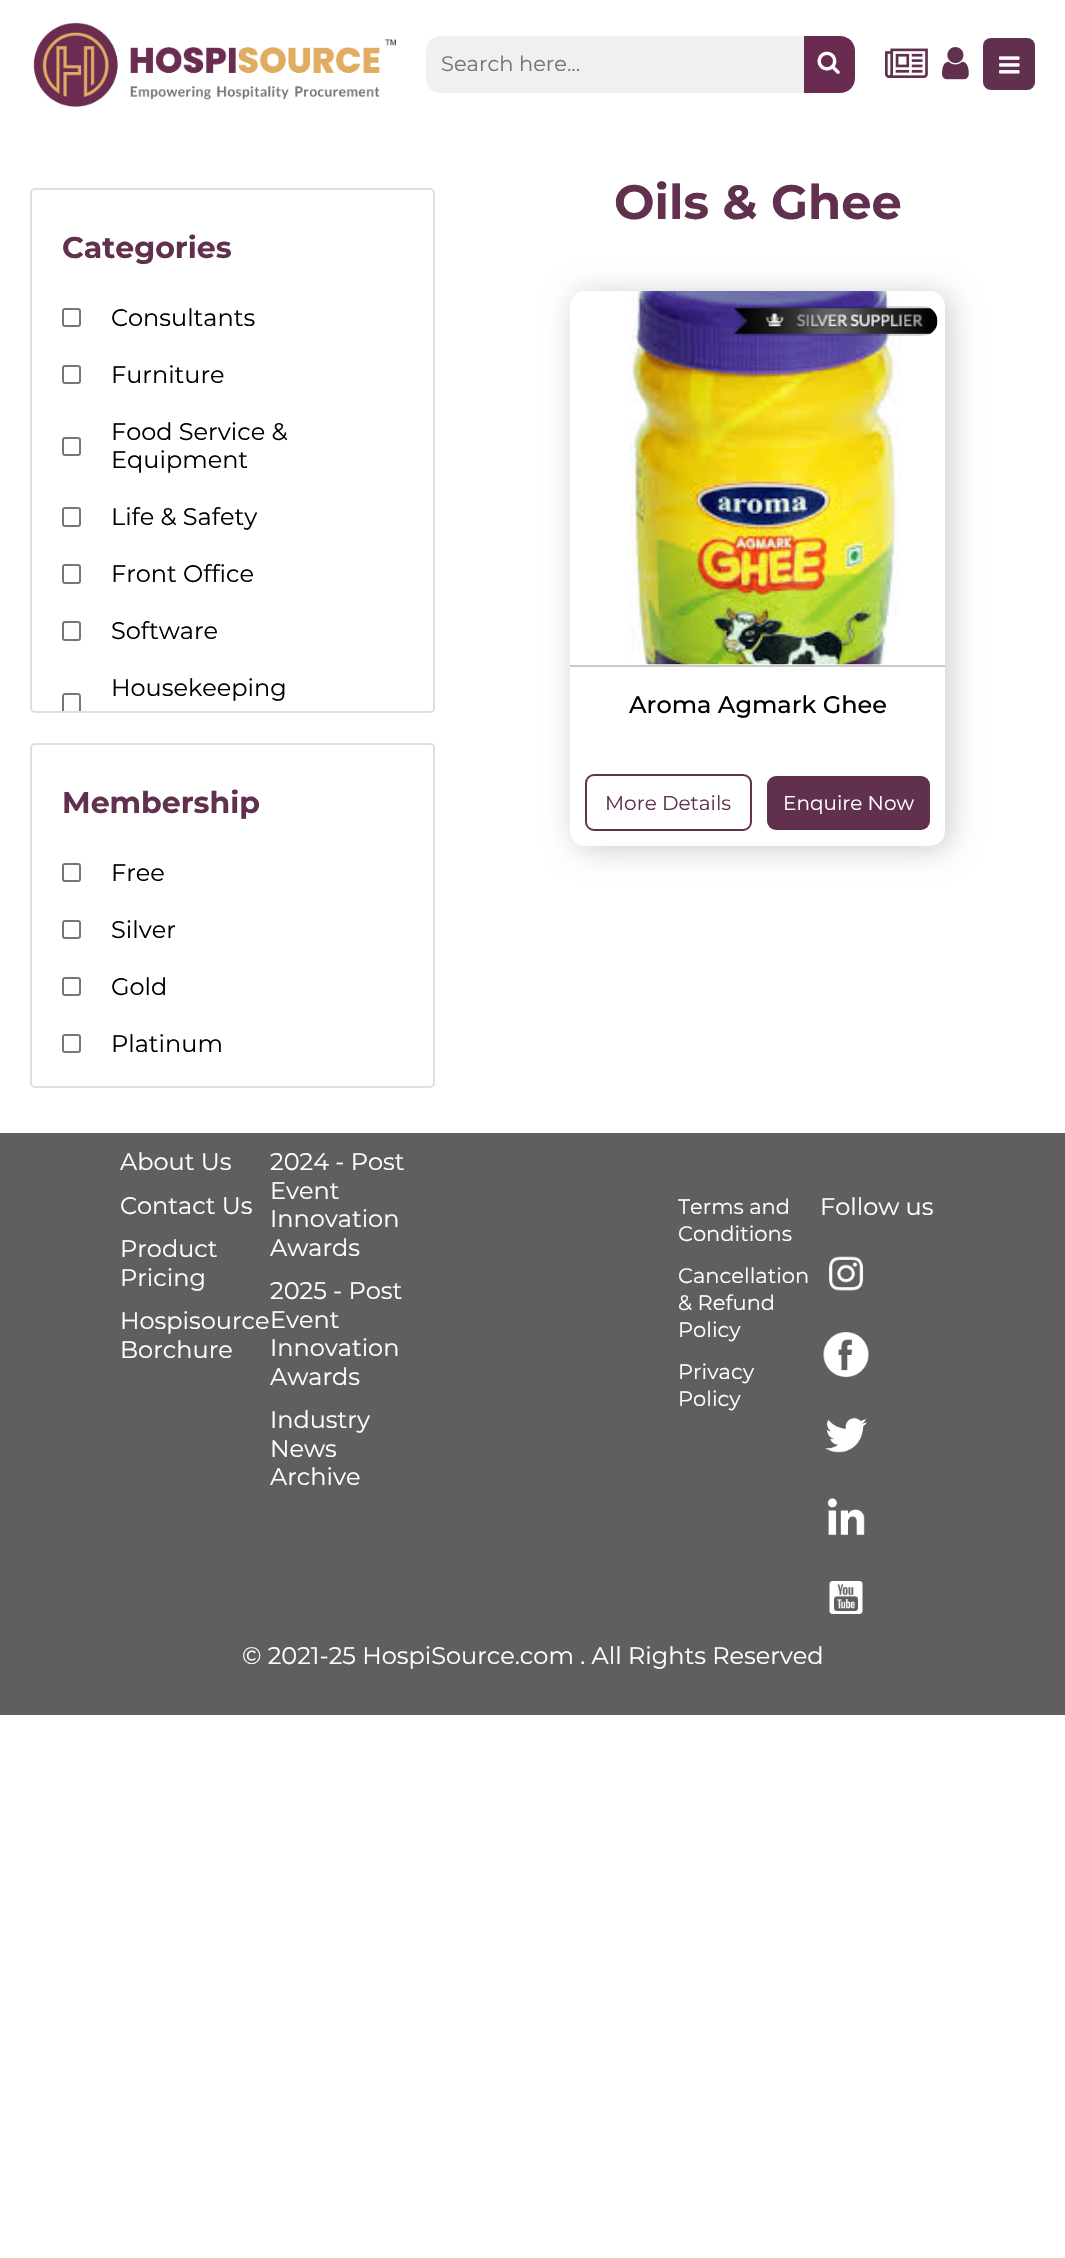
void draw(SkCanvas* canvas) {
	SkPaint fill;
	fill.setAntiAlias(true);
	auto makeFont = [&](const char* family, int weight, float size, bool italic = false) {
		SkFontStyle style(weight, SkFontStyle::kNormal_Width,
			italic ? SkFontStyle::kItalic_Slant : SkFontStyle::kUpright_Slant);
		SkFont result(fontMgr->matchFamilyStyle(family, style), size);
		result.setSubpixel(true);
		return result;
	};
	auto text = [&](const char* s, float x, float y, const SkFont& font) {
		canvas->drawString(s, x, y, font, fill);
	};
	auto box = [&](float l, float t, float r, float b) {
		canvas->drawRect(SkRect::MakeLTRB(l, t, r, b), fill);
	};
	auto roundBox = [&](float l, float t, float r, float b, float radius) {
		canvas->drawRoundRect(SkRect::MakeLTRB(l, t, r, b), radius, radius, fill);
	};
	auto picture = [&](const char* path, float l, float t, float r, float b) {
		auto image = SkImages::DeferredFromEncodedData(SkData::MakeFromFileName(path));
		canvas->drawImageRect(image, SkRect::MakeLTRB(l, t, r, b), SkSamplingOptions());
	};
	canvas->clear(0xFFFFFFFF);
	picture("image0.png", 33, 22, 396, 107);
	fill.setColor(0xFFF0F0F0);
	canvas->drawPath(SkPathBuilder().moveTo(441, 36).lineTo(804, 36).lineTo(804, 93).lineTo(441, 93).cubicTo(432.5f, 93, 426, 86.5f, 426, 78).lineTo(426, 51).cubicTo(426, 42.5f, 432.5f, 36, 441, 36).close().detach(), fill);
	fill.setColor(0xFF692C50);
	canvas->drawPath(SkPathBuilder().moveTo(804, 36).lineTo(840, 36).cubicTo(848.5f, 36, 855, 42.5f, 855, 51).lineTo(855, 78).cubicTo(855, 86.5f, 848.5f, 93, 840, 93).lineTo(804, 93).close().detach(), fill);
	picture("image1.png", 817, 51, 840, 74);
	picture("image2.png", 885, 48, 928, 78);
	picture("image3.png", 942, 47, 969, 80);
	fill.setColor(0xFF61304F);
	roundBox(983, 38, 1035, 90, 8);
	picture("image4.png", 999, 56, 1020, 74);
	fill.setStyle(SkPaint::kStroke_Style);
	fill.setStrokeWidth(2);
	fill.setColor(0xFFE0DFDF);
	canvas->drawRoundRect(SkRect::MakeLTRB(31, 189, 434, 712), 4, 4, fill);
	fill.setColor(0xFF767676);
	canvas->drawRoundRect(SkRect::MakeLTRB(63, 309, 80, 326), 2, 2, fill);
	canvas->drawRoundRect(SkRect::MakeLTRB(63, 366, 80, 383), 2, 2, fill);
	canvas->drawRoundRect(SkRect::MakeLTRB(63, 438, 80, 455), 2, 2, fill);
	canvas->drawRoundRect(SkRect::MakeLTRB(63, 508, 80, 526), 2, 2, fill);
	canvas->drawRoundRect(SkRect::MakeLTRB(63, 565, 80, 583), 2, 2, fill);
	canvas->drawRoundRect(SkRect::MakeLTRB(63, 622, 80, 640), 2, 2, fill);
	fill.setStyle(SkPaint::kFill_Style);
	canvas->drawPath(SkPathBuilder().moveTo(65, 693).cubicTo(62, 693, 62, 696, 62, 698.5f).lineTo(62, 711).lineTo(65, 711).cubicTo(64.5f, 711, 64, 710.5f, 64, 710).lineTo(64, 696).cubicTo(64, 695.5f, 64.5f, 695, 65, 695).lineTo(78, 695).cubicTo(78.5f, 695, 79, 695.5f, 79, 696).lineTo(79, 710).cubicTo(79, 710.5f, 78.5f, 711, 78, 711).lineTo(81, 711).lineTo(81, 698.5f).cubicTo(81, 696, 81, 693, 78, 693).close().detach(), fill);
	fill.setStyle(SkPaint::kStroke_Style);
	fill.setColor(0xFFE0DFDF);
	canvas->drawRoundRect(SkRect::MakeLTRB(31, 744, 434, 1087), 4, 4, fill);
	fill.setColor(0xFF767676);
	canvas->drawRoundRect(SkRect::MakeLTRB(63, 864, 80, 881), 2, 2, fill);
	canvas->drawRoundRect(SkRect::MakeLTRB(63, 921, 80, 938), 2, 2, fill);
	canvas->drawRoundRect(SkRect::MakeLTRB(63, 978, 80, 995), 2, 2, fill);
	canvas->drawRoundRect(SkRect::MakeLTRB(63, 1035, 80, 1052), 2, 2, fill);
	fill.setStyle(SkPaint::kFill_Style);
	fill.setColor(0x33000000);
	fill.setMaskFilter(SkMaskFilter::MakeBlur(kNormal_SkBlurStyle, 15));
	canvas->drawRoundRect(SkRect::MakeLTRB(575, 294, 950, 849), 15, 15, fill);
	fill.setMaskFilter(nullptr);
	fill.setColor(0xFFFFFFFF);
	roundBox(570, 291, 945, 846, 15);
	picture("image5.png", 630, 291, 902, 665);
	fill.setColor(0xFFC9C9C9);
	box(570, 665, 945, 667);
	picture("image6.png", 733, 306, 938, 336);
	fill.setStyle(SkPaint::kStroke_Style);
	fill.setColor(0xFF61304F);
	canvas->drawRoundRect(SkRect::MakeLTRB(586, 775, 751, 830), 8, 8, fill);
	fill.setStyle(SkPaint::kFill_Style);
	roundBox(767, 776, 930, 830, 9);
	fill.setColor(0xFF5F5F5D);
	box(0, 1133, 1065, 1715);
	picture("image7.png", 828, 1256, 864, 1291);
	picture("image8.png", 823, 1332, 869, 1377);
	picture("image9.png", 825, 1418, 867, 1453);
	picture("image10.png", 827, 1498, 865, 1535);
	picture("image11.png", 829, 1581, 863, 1614);
	auto font1 = makeFont("Montserrat", 400, 21);
	fill.setColor(0xFF757575);
	text("Search here...", 441, 71, font1);
	auto font2 = makeFont("Montserrat", 700, 30);
	fill.setColor(0xFF61304F);
	text("Categories", 62, 258, font2);
	auto font3 = makeFont("Montserrat", 400, 24);
	fill.setColor(0xFF000000);
	text("Consultants", 111, 326, font3);
	text("Furniture", 111, 383, font3);
	text("Food Service &", 111, 440, font3);
	text("Equipment", 111, 468, font3);
	text("Life & Safety", 111, 525, font3);
	text("Front Office", 111, 582, font3);
	text("Software", 111, 639, font3);
	text("Housekeeping", 111, 696, font3);
	fill.setColor(0xFF61304F);
	text("Membership", 62, 813, font2);
	fill.setColor(0xFF000000);
	text("Free", 111, 881, font3);
	text("Silver", 111, 938, font3);
	text("Gold", 111, 995, font3);
	text("Platinum", 111, 1052, font3);
	auto font4 = makeFont("Montserrat", 700, 48);
	fill.setColor(0xFF61304F);
	text("Oils & Ghee", 614, 219, font4);
	auto font5 = makeFont("Montserrat", 500, 24);
	fill.setColor(0xFF000000);
	text("Aroma Agmark Ghee", 629, 713, font5);
	auto font6 = makeFont("Montserrat", 400, 20);
	fill.setColor(0xFF61304F);
	text("More Details", 605, 810, font6);
	fill.setColor(0xFFFFFFFF);
	text("Enquire Now", 783, 810, font6);
	text("About Us", 120, 1170, font3);
	text("Contact Us", 120, 1214, font3);
	text("Product", 120, 1257, font3);
	text("Pricing", 120, 1286, font3);
	text("Hospisource", 120, 1329, font3);
	text("Borchure", 120, 1358, font3);
	text("2024 - Post", 270, 1170, font3);
	text("Event", 270, 1199, font3);
	text("Innovation", 270, 1227, font3);
	text("Awards", 270, 1256, font3);
	text("2025 - Post", 270, 1299, font3);
	text("Event", 270, 1328, font3);
	text("Innovation", 270, 1356, font3);
	text("Awards", 270, 1385, font3);
	text("Industry", 270, 1428, font3);
	text("News", 270, 1457, font3);
	text("Archive", 270, 1485, font3);
	text("Terms and", 678, 1214, font1);
	text("Conditions", 678, 1241, font1);
	text("Cancellation", 678, 1283, font1);
	text("& Refund", 678, 1310, font1);
	text("Policy", 678, 1337, font1);
	text("Privacy", 678, 1379, font1);
	text("Policy", 678, 1406, font1);
	text("Follow us", 820, 1215, font3);
	text("© 2021-25 HospiSource.com . All Rights Reserved", 242, 1664, font3);
}
